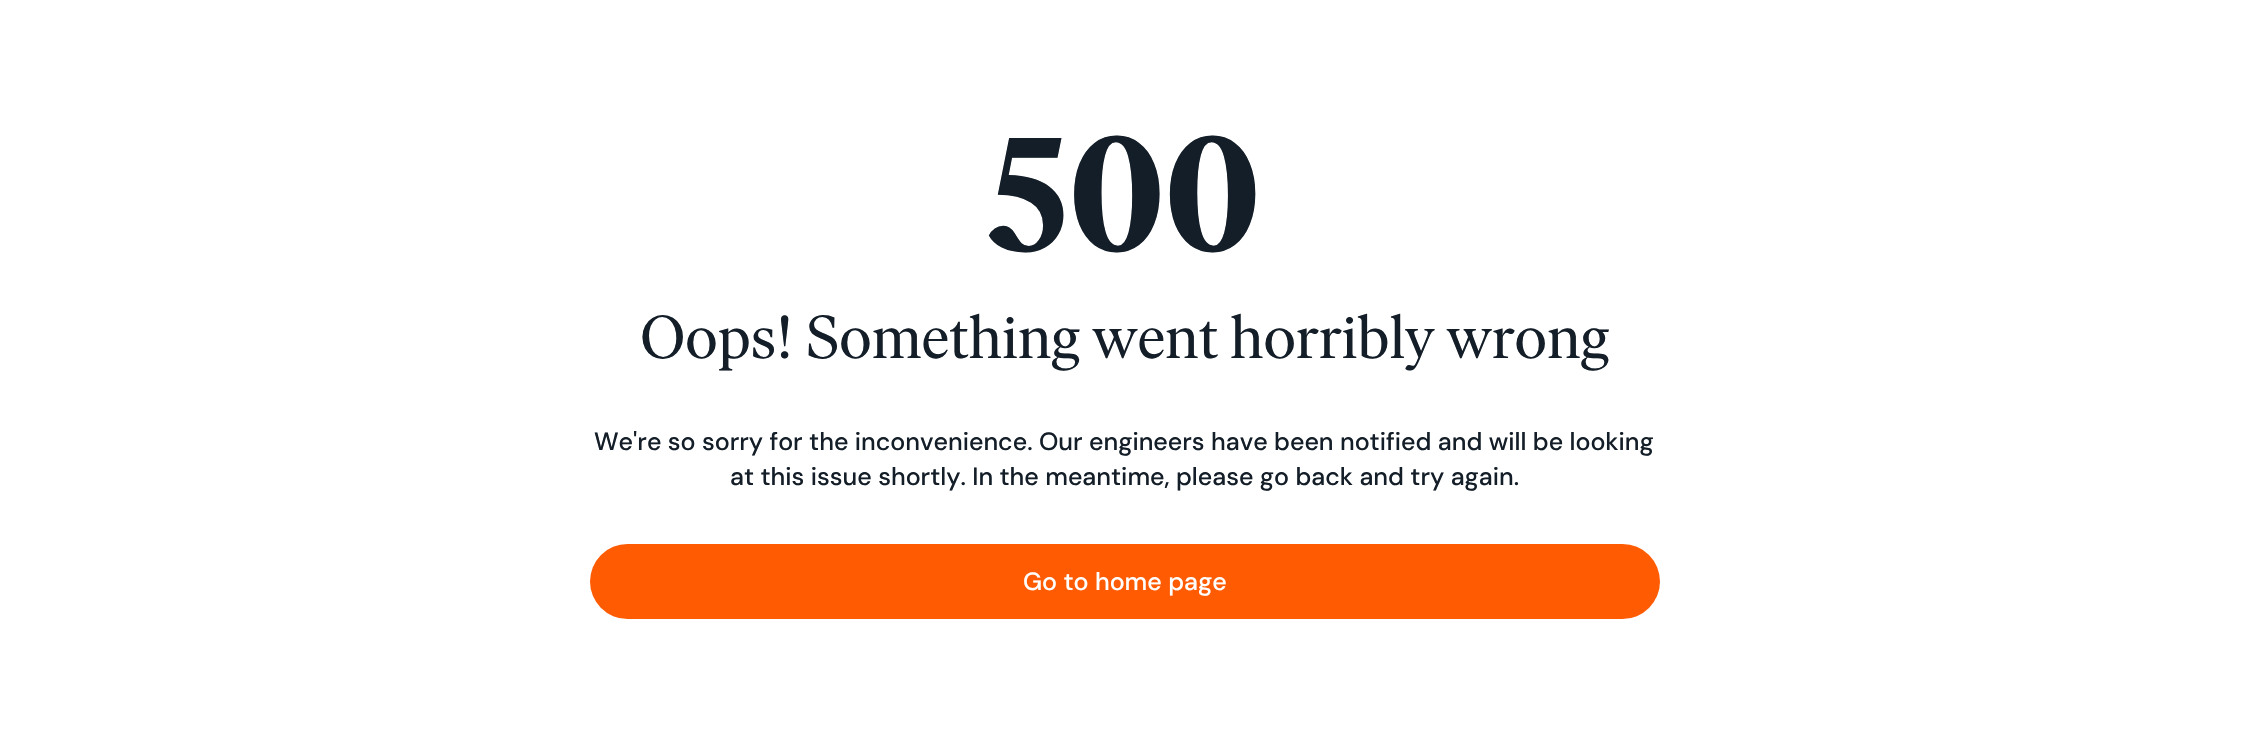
void draw(SkCanvas* canvas) {
	SkPaint fill;
	fill.setAntiAlias(true);
	auto makeFont = [&](const char* family, int weight, float size, bool italic = false) {
		SkFontStyle style(weight, SkFontStyle::kNormal_Width,
			italic ? SkFontStyle::kItalic_Slant : SkFontStyle::kUpright_Slant);
		SkFont result(fontMgr->matchFamilyStyle(family, style), size);
		result.setSubpixel(true);
		return result;
	};
	auto text = [&](const char* s, float x, float y, const SkFont& font) {
		canvas->drawString(s, x, y, font, fill);
	};
	auto roundBox = [&](float l, float t, float r, float b, float radius) {
		canvas->drawRoundRect(SkRect::MakeLTRB(l, t, r, b), radius, radius, fill);
	};
	canvas->clear(0xFFFFFFFF);
	fill.setColor(0xFFFF5B03);
	roundBox(590, 544, 1660, 619, 37.5f);
	auto font1 = makeFont("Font", 700, 160);
	fill.setColor(0xFF141E28);
	text("500", 989, 250, font1);
	auto font2 = makeFont("Font", 400, 60);
	text("Oops! Something went horribly wrong", 640, 358, font2);
	auto font3 = makeFont("DM Sans", 500, 25);
	text("We're so sorry for the inconvenience. Our engineers have been notified and will be looking", 594, 450, font3);
	text("at this issue shortly. In the meantime, please go back and try again.", 730, 485, font3);
	fill.setColor(0xFFFFFFFF);
	text("Go to home page", 1023, 590, font3);
}
